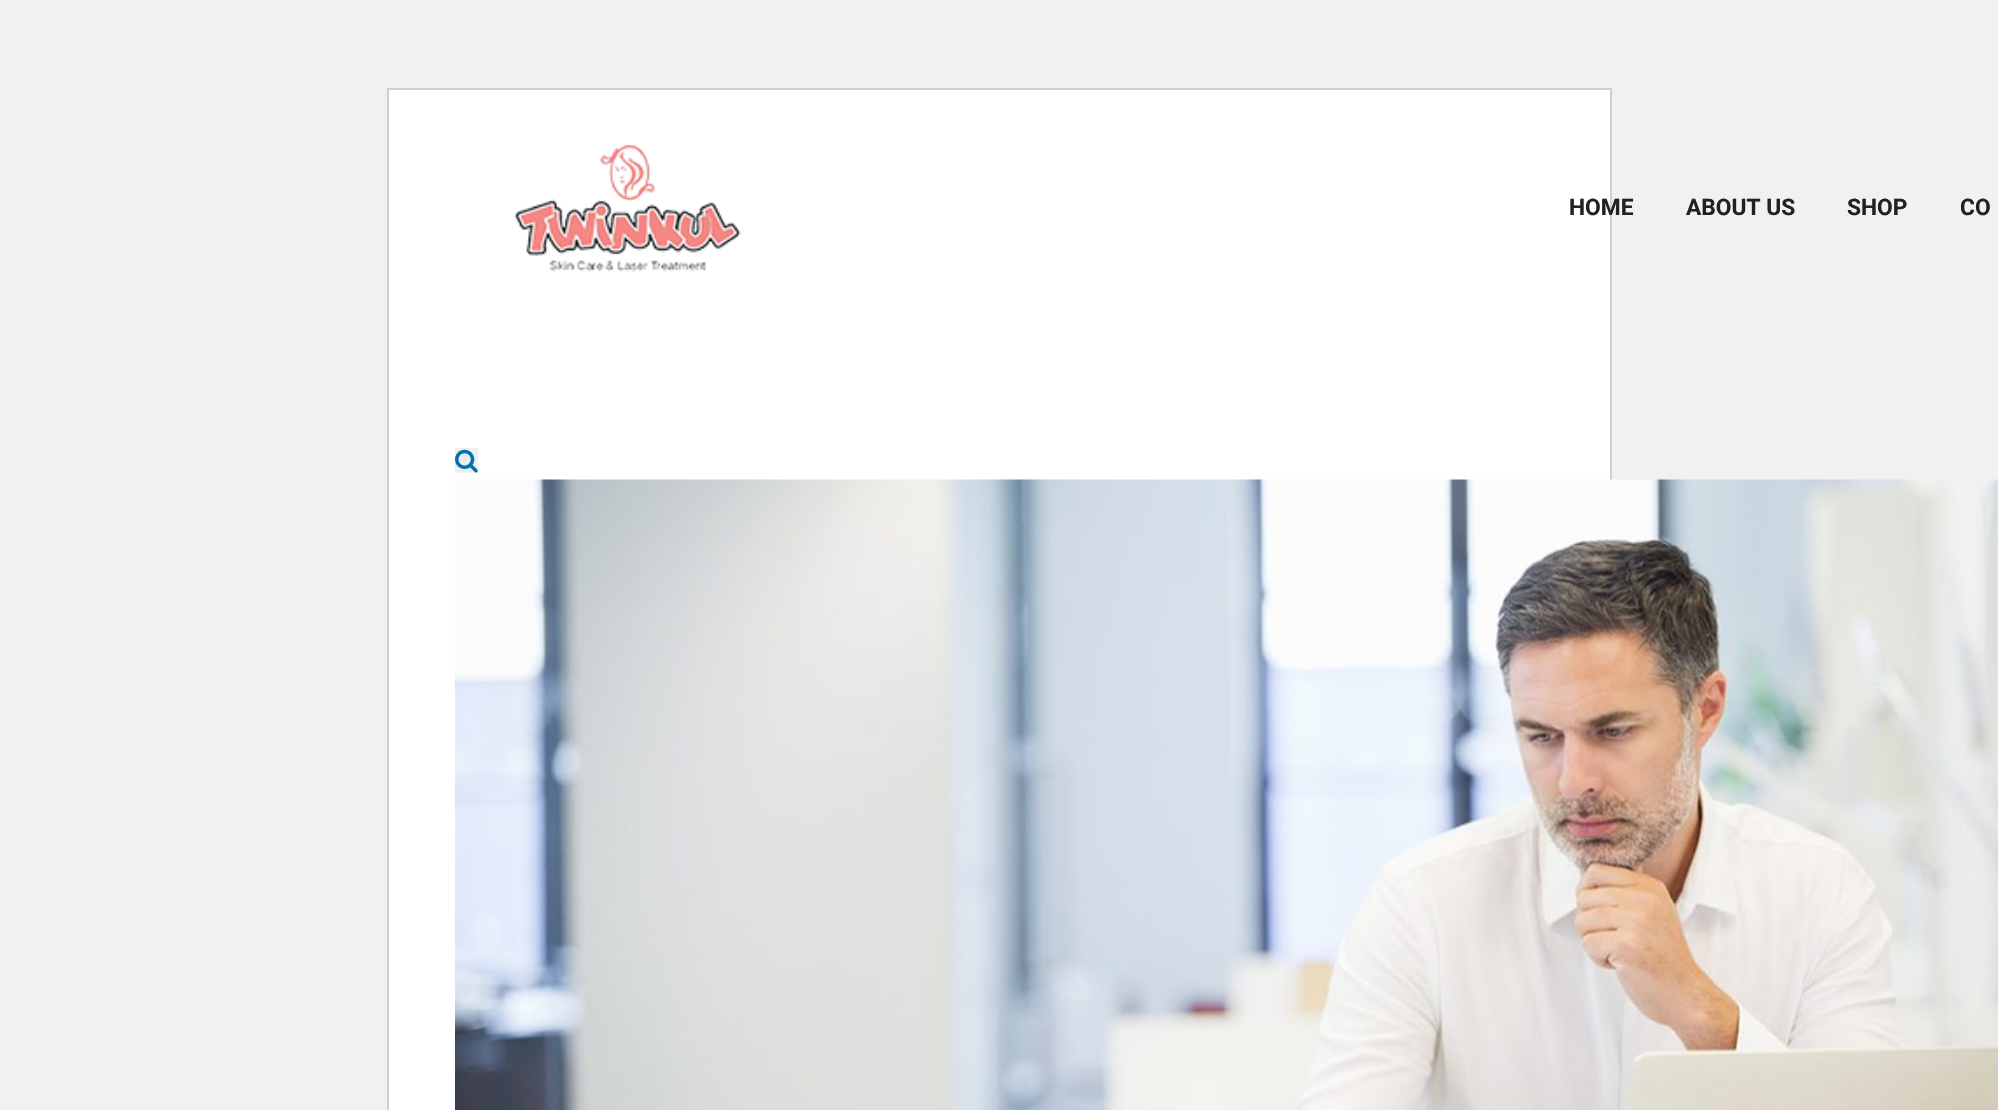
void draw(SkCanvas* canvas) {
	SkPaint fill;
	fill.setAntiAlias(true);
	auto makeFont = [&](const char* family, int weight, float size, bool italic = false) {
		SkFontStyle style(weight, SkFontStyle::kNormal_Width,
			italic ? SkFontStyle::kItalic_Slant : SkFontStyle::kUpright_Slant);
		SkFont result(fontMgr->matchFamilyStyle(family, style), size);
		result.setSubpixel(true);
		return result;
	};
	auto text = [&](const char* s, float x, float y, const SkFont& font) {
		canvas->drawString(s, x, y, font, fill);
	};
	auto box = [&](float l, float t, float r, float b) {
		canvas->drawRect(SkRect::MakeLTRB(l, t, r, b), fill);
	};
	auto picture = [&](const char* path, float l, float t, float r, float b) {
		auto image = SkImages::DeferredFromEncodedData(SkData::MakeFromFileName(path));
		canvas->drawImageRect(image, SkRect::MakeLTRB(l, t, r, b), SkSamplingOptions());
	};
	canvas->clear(0xFFF1F1F1);
	fill.setColor(0xFFFFFFFF);
	canvas->drawRect(SkRect::MakeLTRB(388, 89, 1611, 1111), fill);
	fill.setStyle(SkPaint::kStroke_Style);
	fill.setStrokeWidth(2);
	fill.setColor(0xFFCCD0D4);
	canvas->drawRect(SkRect::MakeLTRB(388, 89, 1611, 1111), fill);
	picture("image0.png", 514, 144, 741, 272);
	fill.setStyle(SkPaint::kFill_Style);
	fill.setColor(0xFFEEEEEE);
	box(455, 448, 478, 473);
	picture("image1.png", 455, 449, 478, 473);
	picture("image2.png", 455, 479, 1998, 1110);
	auto font1 = makeFont("Roboto", 700, 22.75f);
	fill.setColor(0xFF212121);
	text("HOME", 1569, 215, font1);
	text("ABOUT US", 1686, 215, font1);
	text("SHOP", 1847, 215, font1);
	text("CO", 1960, 215, font1);
}
